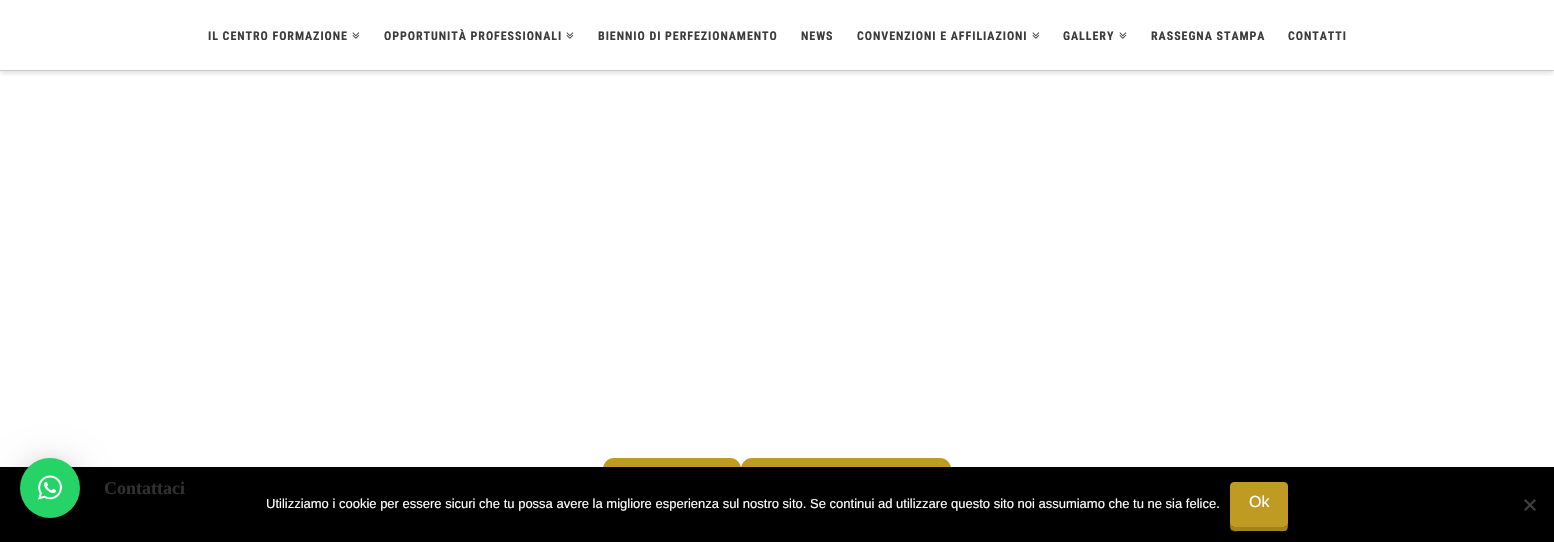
void draw(SkCanvas* canvas) {
	SkPaint fill;
	fill.setAntiAlias(true);
	auto makeFont = [&](const char* family, int weight, float size, bool italic = false) {
		SkFontStyle style(weight, SkFontStyle::kNormal_Width,
			italic ? SkFontStyle::kItalic_Slant : SkFontStyle::kUpright_Slant);
		SkFont result(fontMgr->matchFamilyStyle(family, style), size);
		result.setSubpixel(true);
		return result;
	};
	auto text = [&](const char* s, float x, float y, const SkFont& font) {
		canvas->drawString(s, x, y, font, fill);
	};
	auto spacedText = [&](const char* s, float x, float y, const SkFont& font, const SkPaint& ink, float letter, float word) {
		std::vector<SkGlyphID> glyphs(font.countText(s, strlen(s), SkTextEncoding::kUTF8));
		std::vector<float> xs(glyphs.size());
		font.textToGlyphs(s, strlen(s), SkTextEncoding::kUTF8, glyphs);
		font.getXPos(glyphs, xs, x);
		float extra = 0;
		for (size_t i = 0; i < glyphs.size(); i++) {
			xs[i] += extra;
			extra += letter + word * (glyphs[i] == font.unicharToGlyph(' '));
		}
		canvas->drawTextBlob(SkTextBlob::MakeFromPosHGlyphs(glyphs, xs, y, font), 0, 0, ink);
	};
	auto box = [&](float l, float t, float r, float b) {
		canvas->drawRect(SkRect::MakeLTRB(l, t, r, b), fill);
	};
	auto roundBox = [&](float l, float t, float r, float b, float radius) {
		canvas->drawRoundRect(SkRect::MakeLTRB(l, t, r, b), radius, radius, fill);
	};
	auto picture = [&](const char* path, float l, float t, float r, float b) {
		auto image = SkImages::DeferredFromEncodedData(SkData::MakeFromFileName(path));
		canvas->drawImageRect(image, SkRect::MakeLTRB(l, t, r, b), SkSamplingOptions());
	};
	canvas->clear(0xFFFFFFFF);
	canvas->save();
	canvas->clipRect(SkRect::MakeLTRB(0, 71, 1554, 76));
	fill.setColor(0x21000000);
	fill.setMaskFilter(SkMaskFilter::MakeBlur(kNormal_SkBlurStyle, 2.5f));
	canvas->drawRect(SkRect::MakeLTRB(0, 2, 1554, 73), fill);
	fill.setMaskFilter(nullptr);
	canvas->restore();
	fill.setColor(0xFFCCCCCC);
	box(0, 70, 1554, 71);
	picture("image0.png", 352, 32, 360, 39);
	picture("image0.png", 566, 32, 574, 39);
	picture("image0.png", 1032, 32, 1040, 39);
	picture("image0.png", 1119, 32, 1127, 39);
	fill.setColor(0xFFC09B24);
	roundBox(603, 458, 741, 520, 11);
	roundBox(741, 458, 951, 520, 11);
	fill.setColor(0xFF000000);
	box(0, 467, 1554, 542);
	fill.setColor(0x29000000);
	fill.setMaskFilter(SkMaskFilter::MakeBlur(kNormal_SkBlurStyle, 16));
	canvas->drawRoundRect(SkRect::MakeLTRB(20, 460, 80, 520), 30, 30, fill);
	fill.setMaskFilter(nullptr);
	fill.setColor(0x0F000000);
	fill.setMaskFilter(SkMaskFilter::MakeBlur(kNormal_SkBlurStyle, 3));
	canvas->drawRoundRect(SkRect::MakeLTRB(20, 459, 80, 519), 30, 30, fill);
	fill.setMaskFilter(nullptr);
	fill.setColor(0xFF25D366);
	canvas->drawCircle(50, 488, 30, fill);
	picture("image1.png", 38, 475, 62, 500);
	fill.setColor(0xFFA18320);
	canvas->drawPath(SkPathBuilder().moveTo(1230, 523).cubicTo(1230, 533, 1232, 531, 1242, 531).lineTo(1276, 531).cubicTo(1286, 531, 1288, 533, 1288, 523).cubicTo(1288, 525, 1286, 527, 1284, 527).lineTo(1234, 527).cubicTo(1232, 527, 1230, 525, 1230, 523).close().detach(), fill);
	fill.setColor(0xFFC09B24);
	canvas->drawRoundRect(SkRect::MakeLTRB(1230.5f, 482.5f, 1287.5f, 526.5f), 3.5f, 3.5f, fill);
	fill.setStyle(SkPaint::kStroke_Style);
	fill.setStrokeWidth(1);
	canvas->drawRoundRect(SkRect::MakeLTRB(1230.5f, 482.5f, 1287.5f, 526.5f), 3.5f, 3.5f, fill);
	fill.setStyle(SkPaint::kFill_Style);
	fill.setColor(0xFF404040);
	canvas->drawPath(SkPathBuilder().moveTo(1534.5f, 499).lineTo(1536, 500.5f).lineTo(1525.5f, 511).lineTo(1524, 509.5f).close().detach(), fill);
	canvas->drawPath(SkPathBuilder().moveTo(1524, 500.5f).lineTo(1525.5f, 499).lineTo(1536, 509.5f).lineTo(1534.5f, 511).close().detach(), fill);
	auto font1 = makeFont("Roboto Condensed", 700, 12);
	fill.setColor(0xFF3C3C3D);
	spacedText("IL CENTRO FORMAZIONE", 208, 40, font1, fill, 0.95f, 0);
	spacedText("OPPORTUNITÀ PROFESSIONALI", 384, 40, font1, fill, 0.95f, 0);
	spacedText("BIENNIO DI PERFEZIONAMENTO", 598, 40, font1, fill, 0.95f, 0);
	spacedText("NEWS", 801, 40, font1, fill, 0.95f, 0);
	spacedText("CONVENZIONI E AFFILIAZIONI", 857, 40, font1, fill, 0.95f, 0);
	spacedText("GALLERY", 1063, 40, font1, fill, 0.95f, 0);
	spacedText("RASSEGNA STAMPA", 1151, 40, font1, fill, 0.95f, 0);
	spacedText("CONTATTI", 1288, 40, font1, fill, 0.95f, 0);
	auto font2 = makeFont("Liberation Serif", 700, 18);
	fill.setColor(0xFF303030);
	text("Contattaci", 104, 494, font2);
	auto font3 = makeFont("Liberation Sans", 400, 13);
	fill.setColor(0xFFFFFFFF);
	text("Utilizziamo i cookie per essere sicuri che tu possa avere la migliore esperienza sul nostro sito. Se continui ad utilizzare questo sito noi assumiamo che tu ne sia felice.", 266, 508, font3);
	auto font4 = makeFont("Liberation Sans", 400, 16);
	text("Ok", 1249, 507, font4);
}
